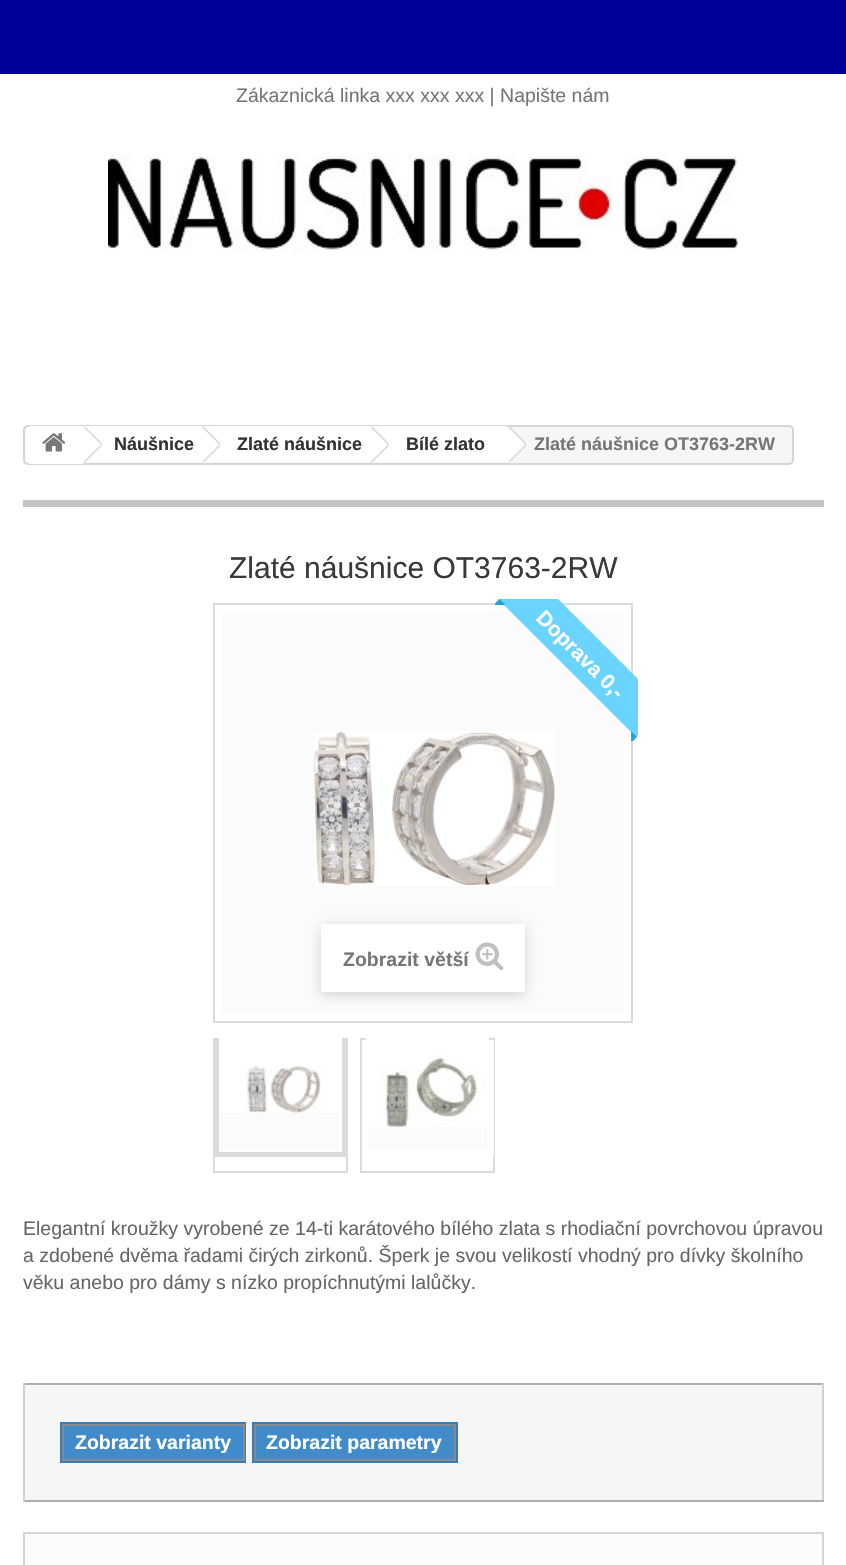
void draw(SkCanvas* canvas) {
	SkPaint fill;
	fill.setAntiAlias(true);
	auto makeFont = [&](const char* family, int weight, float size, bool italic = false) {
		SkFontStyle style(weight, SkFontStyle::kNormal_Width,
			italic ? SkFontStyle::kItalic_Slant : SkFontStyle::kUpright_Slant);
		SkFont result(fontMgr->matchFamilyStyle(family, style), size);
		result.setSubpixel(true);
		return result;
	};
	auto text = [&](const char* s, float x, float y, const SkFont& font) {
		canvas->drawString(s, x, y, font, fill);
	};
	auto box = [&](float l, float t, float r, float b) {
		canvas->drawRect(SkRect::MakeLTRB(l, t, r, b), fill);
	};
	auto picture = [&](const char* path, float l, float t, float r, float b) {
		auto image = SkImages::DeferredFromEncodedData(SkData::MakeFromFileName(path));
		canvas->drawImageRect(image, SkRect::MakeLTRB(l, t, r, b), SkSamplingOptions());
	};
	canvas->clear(0xFFFFFFFF);
	fill.setColor(0xFF000099);
	box(0, 0, 846, 74);
	picture("image0.png", 108, 154, 738, 251);
	fill.setColor(0xFFF6F6F6);
	canvas->drawRoundRect(SkRect::MakeLTRB(24, 426, 793, 464), 4, 4, fill);
	fill.setStyle(SkPaint::kStroke_Style);
	fill.setStrokeWidth(2);
	fill.setColor(0xFFD6D4D4);
	canvas->drawRoundRect(SkRect::MakeLTRB(24, 426, 793, 464), 4, 4, fill);
	fill.setStyle(SkPaint::kFill_Style);
	fill.setColor(0xFFFFFFFF);
	canvas->drawPath(SkPathBuilder().moveTo(31, 426).lineTo(83, 426).lineTo(83, 464).lineTo(31, 464).cubicTo(28, 464, 26, 462, 26, 459).lineTo(26, 431).cubicTo(26, 428, 28, 426, 31, 426).close().detach(), fill);
	picture("image1.png", 42, 433, 66, 452);
	box(83, 426, 204, 462);
	fill.setColor(0xFFD6D4D4);
	canvas->drawPath(SkPathBuilder().moveTo(85, 426.5f).lineTo(102, 443.5f).lineTo(101, 444.5f).lineTo(84, 427.5f).close().detach(), fill);
	canvas->drawPath(SkPathBuilder().moveTo(101, 444.5f).lineTo(102, 445.5f).lineTo(85, 462.5f).lineTo(84, 461.5f).close().detach(), fill);
	fill.setColor(0xFFFFFFFF);
	canvas->drawPath(SkPathBuilder().moveTo(219.5f, 427.5f).lineTo(234.5f, 442.5f).cubicTo(235.5f, 443.5f, 235.5f, 445.5f, 234.5f, 446.5f).lineTo(219.5f, 461.5f).cubicTo(218.5f, 462.5f, 216.5f, 462.5f, 215.5f, 461.5f).lineTo(200.5f, 446.5f).cubicTo(199.5f, 445.5f, 199.5f, 443.5f, 200.5f, 442.5f).lineTo(215.5f, 427.5f).cubicTo(216.5f, 426.5f, 218.5f, 426.5f, 219.5f, 427.5f).close().detach(), fill);
	box(204, 426, 372, 462);
	fill.setColor(0xFFD6D4D4);
	canvas->drawPath(SkPathBuilder().moveTo(203.5f, 426.5f).lineTo(220.5f, 443.5f).lineTo(219.5f, 444.5f).lineTo(202.5f, 427.5f).close().detach(), fill);
	canvas->drawPath(SkPathBuilder().moveTo(219.5f, 444.5f).lineTo(220.5f, 445.5f).lineTo(203.5f, 462.5f).lineTo(202.5f, 461.5f).close().detach(), fill);
	fill.setColor(0xFFFFFFFF);
	canvas->drawPath(SkPathBuilder().moveTo(388.5f, 427.5f).lineTo(403, 442.5f).cubicTo(404.5f, 443.5f, 404.5f, 445.5f, 403, 446.5f).lineTo(388.5f, 461.5f).cubicTo(387, 462.5f, 385, 462.5f, 384, 461.5f).lineTo(369, 446.5f).cubicTo(368, 445.5f, 368, 443.5f, 369, 442.5f).lineTo(384, 427.5f).cubicTo(385, 426.5f, 387, 426.5f, 388.5f, 427.5f).close().detach(), fill);
	box(372, 426, 507, 462);
	fill.setColor(0xFFD6D4D4);
	canvas->drawPath(SkPathBuilder().moveTo(372, 426.5f).lineTo(389, 443.5f).lineTo(388, 444.5f).lineTo(371, 427.5f).close().detach(), fill);
	canvas->drawPath(SkPathBuilder().moveTo(388, 444.5f).lineTo(389, 445.5f).lineTo(372, 462.5f).lineTo(371, 461.5f).close().detach(), fill);
	fill.setColor(0xFFFFFFFF);
	canvas->drawPath(SkPathBuilder().moveTo(511, 427.5f).lineTo(525.5f, 442.5f).cubicTo(527, 443.5f, 527, 445.5f, 525.5f, 446.5f).lineTo(511, 461.5f).cubicTo(509.5f, 462.5f, 507.5f, 462.5f, 506.5f, 461.5f).lineTo(491.5f, 446.5f).cubicTo(490.5f, 445.5f, 490.5f, 443.5f, 491.5f, 442.5f).lineTo(506.5f, 427.5f).cubicTo(507.5f, 426.5f, 509.5f, 426.5f, 511, 427.5f).close().detach(), fill);
	fill.setColor(0xFFD6D4D4);
	canvas->drawPath(SkPathBuilder().moveTo(509.5f, 426.5f).lineTo(526.5f, 443.5f).lineTo(525.5f, 444.5f).lineTo(508.5f, 427.5f).close().detach(), fill);
	canvas->drawPath(SkPathBuilder().moveTo(525.5f, 444.5f).lineTo(526.5f, 445.5f).lineTo(509.5f, 462.5f).lineTo(508.5f, 461.5f).close().detach(), fill);
	fill.setColor(0xFFC4C4C4);
	box(23, 500, 824, 507);
	fill.setStyle(SkPaint::kStroke_Style);
	fill.setColor(0xFFDBDBDB);
	canvas->drawRect(SkRect::MakeLTRB(214, 604, 632, 1022), fill);
	fill.setStyle(SkPaint::kFill_Style);
	fill.setColor(0xFFFBFBFB);
	box(222, 612, 624, 1014);
	picture("image2.png", 314, 731, 555, 886);
	canvas->save();
	canvas->clipRect(SkRect::MakeLTRB(495, 599, 638, 741));
	fill.setColor(0xFF6AD4FF);
	canvas->drawPath(SkPathBuilder().moveTo(528, 569).lineTo(666, 707).lineTo(636, 737).lineTo(498, 599).close().detach(), fill);
	fill.setColor(0xFF21A3D8);
	canvas->drawPath(SkPathBuilder().moveTo(505.5f, 605).lineTo(493.5f, 605).lineTo(499.5f, 599).close().detach(), fill);
	canvas->drawPath(SkPathBuilder().moveTo(631, 743).lineTo(631, 731).lineTo(637, 737).close().detach(), fill);
	canvas->restore();
	canvas->save();
	canvas->clipPath(SkPathBuilder(SkPathFillType::kEvenOdd).moveTo(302, 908).lineTo(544, 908).lineTo(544, 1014).lineTo(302, 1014).close().moveTo(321, 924).lineTo(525, 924).lineTo(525, 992).lineTo(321, 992).close().detach(), true);
	fill.setColor(0x29000000);
	fill.setMaskFilter(SkMaskFilter::MakeBlur(kNormal_SkBlurStyle, 6));
	canvas->drawRect(SkRect::MakeLTRB(321, 927, 525, 995), fill);
	fill.setMaskFilter(nullptr);
	canvas->restore();
	fill.setColor(0xE6FFFFFF);
	box(321, 924, 525, 992);
	picture("image3.png", 475, 942, 504, 971);
	fill.setStyle(SkPaint::kStroke_Style);
	fill.setColor(0xFFDBDBDB);
	canvas->drawRect(SkRect::MakeLTRB(214, 1039, 347, 1172), fill);
	fill.setStyle(SkPaint::kFill_Style);
	fill.setColor(0xFFFBFBFB);
	box(221, 1113, 340, 1150);
	fill.setStyle(SkPaint::kStroke_Style);
	fill.setStrokeWidth(5);
	fill.setColor(0xFFDBDBDB);
	canvas->drawRect(SkRect::MakeLTRB(217.5f, 1042.5f, 344.5f, 1154.5f), fill);
	canvas->save();
	canvas->clipRect(SkRect::MakeLTRB(213, 1038, 507, 1173));
	fill.setStrokeWidth(2);
	fill.setColor(0xFFFFFFFF);
	canvas->drawRect(SkRect::MakeLTRB(220, 1030, 341, 1151), fill);
	canvas->restore();
	picture("image4.png", 221, 1038, 340, 1113);
	fill.setColor(0xFFDBDBDB);
	canvas->drawRect(SkRect::MakeLTRB(361, 1039, 494, 1172), fill);
	fill.setStyle(SkPaint::kFill_Style);
	fill.setColor(0xFFFBFBFB);
	box(368, 1127, 487, 1150);
	fill.setStyle(SkPaint::kStroke_Style);
	fill.setStrokeWidth(5);
	fill.setColor(0xFFFFFFFF);
	canvas->drawRect(SkRect::MakeLTRB(364.5f, 1042.5f, 491.5f, 1154.5f), fill);
	canvas->save();
	canvas->clipRect(SkRect::MakeLTRB(213, 1038, 507, 1173));
	fill.setStrokeWidth(2);
	canvas->drawRect(SkRect::MakeLTRB(367, 1030, 488, 1151), fill);
	canvas->restore();
	picture("image5.png", 368, 1038, 487, 1127);
	fill.setStyle(SkPaint::kFill_Style);
	fill.setColor(0xFFF6F6F6);
	box(25, 1385, 822, 1500);
	fill.setColor(0xFFB0AFAF);
	box(23, 1383, 824, 1385);
	fill.setColor(0xFFD2D0D0);
	box(822, 1383, 824, 1502);
	fill.setColor(0xFFB0AFAF);
	box(23, 1500, 824, 1502);
	fill.setColor(0xFFD2D0D0);
	box(23, 1383, 25, 1502);
	fill.setColor(0xFF428BCA);
	box(64, 1426, 243, 1459);
	fill.setStyle(SkPaint::kStroke_Style);
	fill.setColor(0xFF357EBD);
	canvas->drawRect(SkRect::MakeLTRB(61, 1423, 245, 1462), fill);
	fill.setColor(0xFF8B8A8A);
	canvas->drawRect(SkRect::MakeLTRB(63, 1425, 244, 1460), fill);
	fill.setStyle(SkPaint::kFill_Style);
	fill.setColor(0xFF428BCA);
	box(256, 1426, 454, 1459);
	fill.setStyle(SkPaint::kStroke_Style);
	fill.setColor(0xFF357EBD);
	canvas->drawRect(SkRect::MakeLTRB(253, 1423, 457, 1462), fill);
	fill.setColor(0xFF8B8A8A);
	canvas->drawRect(SkRect::MakeLTRB(255, 1425, 455, 1460), fill);
	fill.setStyle(SkPaint::kFill_Style);
	fill.setColor(0xFFFBFBFB);
	box(25, 1534, 822, 1565);
	fill.setColor(0xFFD6D4D4);
	box(23, 1532, 824, 1534);
	box(822, 1532, 824, 1565);
	box(23, 1532, 25, 1565);
	auto font1 = makeFont("Liberation Sans", 400, 19.5f);
	fill.setColor(0xFF777676);
	text("Zákaznická linka xxx xxx xxx | Napište nám", 236, 102, font1);
	auto font2 = makeFont("Liberation Sans", 700, 18);
	fill.setColor(0xFF333333);
	text("Náušnice", 114, 450, font2);
	text("Zlaté náušnice", 237, 450, font2);
	text("Bílé zlato", 406, 450, font2);
	fill.setColor(0xFF777676);
	text("Zlaté náušnice OT3763-2RW", 534, 450, font2);
	auto font3 = makeFont("Liberation Sans", 400, 30);
	fill.setColor(0xFF3A3939);
	text("Zlaté náušnice OT3763-2RW", 229, 578, font3);
	auto font4 = makeFont("Liberation Sans", 700, 21);
	fill.setColor(0xFFFFFFFF);
	canvas->save();
	canvas->rotate(45, 535, 619);
	text("Doprava 0,-", 535, 619, font4);
	canvas->restore();
	auto font5 = makeFont("Liberation Sans", 700, 19.5f);
	fill.setColor(0xFF777676);
	text("Zobrazit větší", 343, 966, font5);
	fill.setColor(0xFF666666);
	text("Elegantní kroužky vyrobené ze 14-ti karátového bílého zlata s rhodiační povrchovou úpravou", 23, 1235, font1);
	text("a zdobené dvěma řadami čirých zirkonů. Šperk je svou velikostí vhodný pro dívky školního", 23, 1262, font1);
	text("věku anebo pro dámy s nízko propíchnutými lalůčky.", 23, 1289, font1);
	fill.setColor(0xFFFFFFFF);
	text("Zobrazit varianty", 75, 1449, font5);
	text("Zobrazit parametry", 266, 1449, font5);
}
